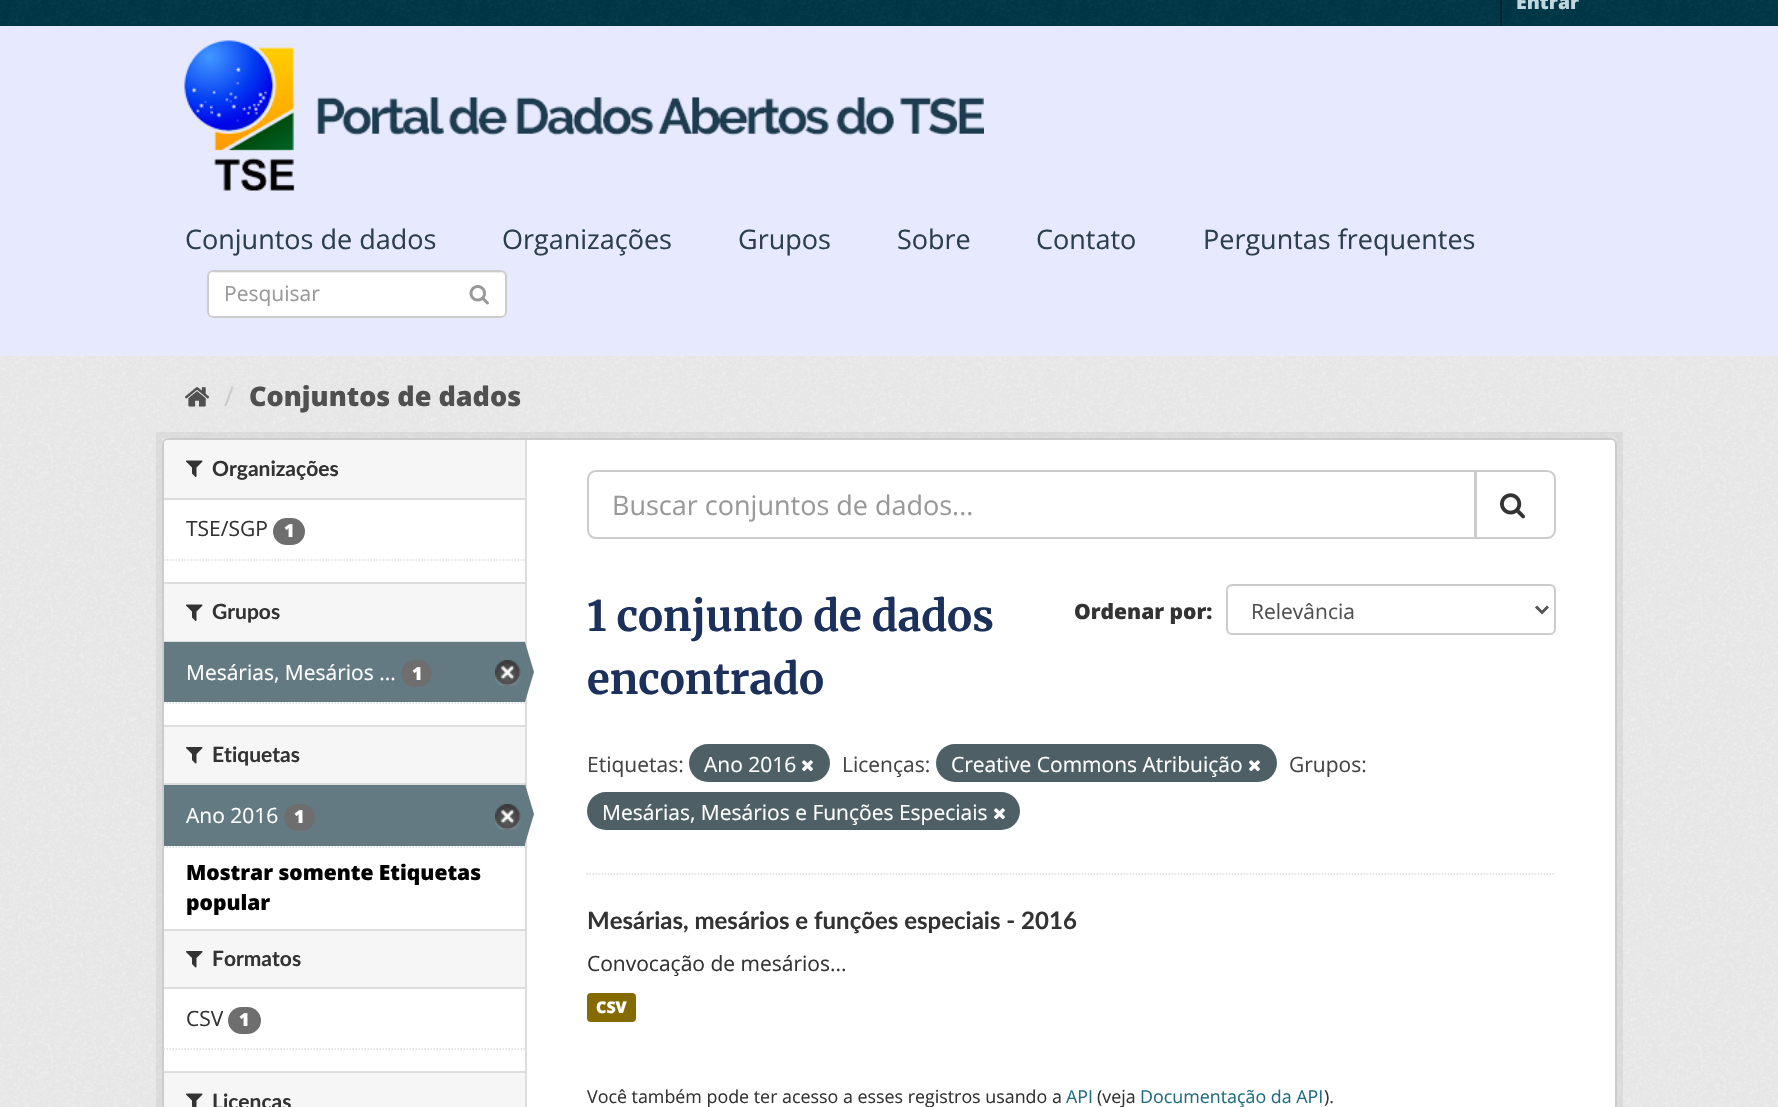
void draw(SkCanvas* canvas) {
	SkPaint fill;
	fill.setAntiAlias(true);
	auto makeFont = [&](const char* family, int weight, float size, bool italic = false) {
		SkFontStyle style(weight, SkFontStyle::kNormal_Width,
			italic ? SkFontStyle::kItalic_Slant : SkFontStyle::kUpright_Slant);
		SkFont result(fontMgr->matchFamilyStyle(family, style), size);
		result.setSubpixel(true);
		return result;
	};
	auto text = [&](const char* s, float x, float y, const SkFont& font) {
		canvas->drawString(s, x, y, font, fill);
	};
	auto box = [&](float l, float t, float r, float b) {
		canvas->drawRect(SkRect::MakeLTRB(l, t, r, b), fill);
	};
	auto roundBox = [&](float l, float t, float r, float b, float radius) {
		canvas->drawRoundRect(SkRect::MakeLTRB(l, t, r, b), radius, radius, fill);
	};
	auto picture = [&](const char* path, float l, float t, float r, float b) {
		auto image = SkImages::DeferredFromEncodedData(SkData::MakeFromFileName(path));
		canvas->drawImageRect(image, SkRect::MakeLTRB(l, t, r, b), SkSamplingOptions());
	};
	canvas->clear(0xFF003647);
	picture("image0.png", 0, 0, 1778, 25);
	fill.setColor(0xFF00232E);
	box(1500, 0, 1502, 26);
	fill.setColor(0xFFE7EAFF);
	box(0, 26, 1778, 356);
	picture("image1.png", 184, 40, 984, 191);
	fill.setColor(0xFFFFFFFF);
	roundBox(207, 270, 507, 318, 6);
	fill.setColor(0xFFECECEC);
	canvas->drawPath(SkPathBuilder().moveTo(213, 273).lineTo(502, 273).lineTo(505, 275).lineTo(506, 278).cubicTo(506, 275, 504, 272, 501, 272).lineTo(214, 272).lineTo(212, 273).lineTo(210, 274).close().detach(), fill);
	fill.setStyle(SkPaint::kStroke_Style);
	fill.setStrokeWidth(2);
	fill.setColor(0xFFCCCCCC);
	canvas->drawRoundRect(SkRect::MakeLTRB(208, 271, 506, 317), 5, 5, fill);
	picture("image2.png", 469, 285, 489, 305);
	fill.setStyle(SkPaint::kFill_Style);
	fill.setColor(0xFFEEEEEE);
	box(0, 356, 1778, 1107);
	picture("image3.png", 0, 356, 1778, 1107);
	picture("image4.png", 185, 387, 210, 407);
	fill.setStyle(SkPaint::kStroke_Style);
	fill.setStrokeWidth(6);
	fill.setColor(0x0D000000);
	canvas->drawRect(SkRect::MakeLTRB(159, 435, 1620, 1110), fill);
	fill.setStyle(SkPaint::kFill_Style);
	fill.setColor(0xFFFFFFFF);
	canvas->drawRoundRect(SkRect::MakeLTRB(163, 439, 1616, 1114), 5, 5, fill);
	fill.setStyle(SkPaint::kStroke_Style);
	fill.setStrokeWidth(2);
	fill.setColor(0xFFCCCCCC);
	canvas->drawRoundRect(SkRect::MakeLTRB(163, 439, 1616, 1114), 5, 5, fill);
	fill.setStyle(SkPaint::kFill_Style);
	fill.setColor(0xFFF6F6F6);
	canvas->drawPath(SkPathBuilder().moveTo(169, 440).lineTo(525, 440).lineTo(525, 500).lineTo(164, 500).lineTo(164, 445).cubicTo(164, 442, 166, 440, 169, 440).close().detach(), fill);
	fill.setColor(0xFFDDDDDD);
	box(164, 498, 525, 500);
	picture("image5.png", 186, 460, 203, 477);
	fill.setColor(0xFF6E6E6E);
	roundBox(273, 518, 305, 545, 13.5f);
	fill.setStyle(SkPaint::kStroke_Style);
	fill.setStrokeWidth(1.5f);
	fill.setColor(0xFFDDDDDD);
	fill.setPathEffect(SkDashPathEffect::Make({{1.5f, 1.5f}}, 0));
	canvas->drawPath(SkPathBuilder().moveTo(163.5f, 560).lineTo(525, 560).detach(), fill);
	fill.setPathEffect(nullptr);
	fill.setStyle(SkPaint::kFill_Style);
	fill.setColor(0xFFF6F6F6);
	box(164, 584, 525, 641);
	fill.setColor(0xFFDDDDDD);
	box(164, 582, 525, 584);
	box(164, 641, 525, 642);
	picture("image5.png", 186, 604, 203, 621);
	fill.setColor(0xFF647A82);
	box(164, 642, 525, 702);
	fill.setColor(0xFF6E6E6E);
	roundBox(401, 660, 432, 687, 13.5f);
	picture("image6.png", 495, 660, 521, 686);
	fill.setColor(0xFFDDDDDD);
	box(525, 440, 527, 1107);
	fill.setColor(0xFF647A82);
	canvas->drawPath(SkPathBuilder().moveTo(525, 702).lineTo(525, 642).lineTo(534, 672).close().detach(), fill);
	fill.setStyle(SkPaint::kStroke_Style);
	fill.setColor(0xFFDDDDDD);
	fill.setPathEffect(SkDashPathEffect::Make({{1.5f, 1.5f}}, 0));
	canvas->drawPath(SkPathBuilder().moveTo(163.5f, 703).lineTo(525, 703).detach(), fill);
	fill.setPathEffect(nullptr);
	fill.setStyle(SkPaint::kFill_Style);
	fill.setColor(0xFFF6F6F6);
	box(164, 727, 525, 783);
	fill.setColor(0xFFDDDDDD);
	box(164, 725, 525, 727);
	box(164, 783, 525, 785);
	picture("image7.png", 186, 747, 203, 764);
	fill.setColor(0xFF647A82);
	box(164, 785, 525, 846);
	fill.setColor(0xFF6E6E6E);
	roundBox(284, 804, 315, 831, 13.5f);
	picture("image6.png", 495, 804, 521, 830);
	fill.setColor(0xFF647A82);
	canvas->drawPath(SkPathBuilder().moveTo(525, 844).lineTo(525, 784).lineTo(534, 814).close().detach(), fill);
	fill.setStyle(SkPaint::kStroke_Style);
	fill.setColor(0xFFDDDDDD);
	fill.setPathEffect(SkDashPathEffect::Make({{1.5f, 1.5f}}, 0));
	canvas->drawPath(SkPathBuilder().moveTo(163.5f, 847).lineTo(525, 847).detach(), fill);
	fill.setPathEffect(nullptr);
	fill.setStyle(SkPaint::kFill_Style);
	fill.setColor(0xFFF6F6F6);
	box(164, 931, 525, 987);
	fill.setColor(0xFFDDDDDD);
	box(164, 929, 525, 931);
	box(164, 987, 525, 989);
	picture("image7.png", 186, 951, 203, 968);
	fill.setColor(0xFF6E6E6E);
	roundBox(228, 1007, 261, 1034, 13.5f);
	fill.setStyle(SkPaint::kStroke_Style);
	fill.setColor(0xFFDDDDDD);
	fill.setPathEffect(SkDashPathEffect::Make({{1.5f, 1.5f}}, 0));
	canvas->drawPath(SkPathBuilder().moveTo(163.5f, 1049).lineTo(525, 1049).detach(), fill);
	fill.setPathEffect(nullptr);
	fill.setStyle(SkPaint::kFill_Style);
	fill.setColor(0xFFF6F6F6);
	box(164, 1073, 525, 1107);
	fill.setColor(0xFFDDDDDD);
	box(164, 1071, 525, 1073);
	picture("image8.png", 186, 1093, 203, 1107);
	fill.setStyle(SkPaint::kStroke_Style);
	fill.setPathEffect(SkDashPathEffect::Make({{1.5f, 1.5f}}, 0));
	canvas->drawPath(SkPathBuilder().moveTo(586.5f, 874).lineTo(1555.5f, 874).detach(), fill);
	fill.setPathEffect(nullptr);
	fill.setStrokeWidth(2);
	fill.setColor(0xFFCCCCCC);
	canvas->drawPath(SkPathBuilder().moveTo(596, 471).lineTo(1475, 471).lineTo(1475, 538).lineTo(596, 538).cubicTo(591.5f, 538, 588, 534.5f, 588, 530).lineTo(588, 479).cubicTo(588, 474.5f, 591.5f, 471, 596, 471).close().detach(), fill);
	fill.setStyle(SkPaint::kFill_Style);
	fill.setColor(0xFFFFFFFF);
	canvas->drawPath(SkPathBuilder().moveTo(1476, 471).lineTo(1547, 471).cubicTo(1551.5f, 471, 1555, 474.5f, 1555, 479).lineTo(1555, 530).cubicTo(1555, 534.5f, 1551.5f, 538, 1547, 538).lineTo(1476, 538).close().detach(), fill);
	fill.setStyle(SkPaint::kStroke_Style);
	fill.setColor(0xFFCCCCCC);
	canvas->drawPath(SkPathBuilder().moveTo(1476, 471).lineTo(1547, 471).cubicTo(1551.5f, 471, 1555, 474.5f, 1555, 479).lineTo(1555, 530).cubicTo(1555, 534.5f, 1551.5f, 538, 1547, 538).lineTo(1476, 538).close().detach(), fill);
	picture("image9.png", 1500, 493, 1526, 519);
	fill.setStyle(SkPaint::kFill_Style);
	fill.setColor(0xFFECECEC);
	canvas->drawPath(SkPathBuilder().moveTo(1232, 586).lineTo(1550, 586).cubicTo(1552, 586, 1554, 589, 1554, 591).cubicTo(1554, 588, 1552, 585, 1549, 585).lineTo(1232, 585).cubicTo(1229, 585, 1227, 588, 1227, 591).cubicTo(1227, 589, 1229, 586, 1232, 586).close().detach(), fill);
	fill.setStyle(SkPaint::kStroke_Style);
	fill.setColor(0xFFCCCCCC);
	canvas->drawRoundRect(SkRect::MakeLTRB(1227, 585, 1555, 634), 5, 5, fill);
	fill.setStrokeWidth(3);
	fill.setColor(0xFF555555);
	canvas->drawPath(SkPathBuilder().moveTo(1536, 606.5f).lineTo(1542, 612.5f).lineTo(1548, 606.5f).detach(), fill);
	fill.setStyle(SkPaint::kFill_Style);
	fill.setColor(0xFF4E5F65);
	roundBox(689, 744, 830, 782, 19);
	picture("image10.png", 802, 760, 813, 772);
	roundBox(936, 744, 1277, 782, 19);
	picture("image10.png", 1249, 760, 1260, 772);
	roundBox(587, 792, 1020, 830, 19);
	picture("image10.png", 994, 808, 1005, 820);
	fill.setColor(0xFF856A00);
	roundBox(587, 993, 636, 1022, 4);
	auto font1 = makeFont("Open Sans", 800, 19.5f);
	fill.setColor(0xFFBFD7DE);
	text("Entrar", 1516, 9, font1);
	auto font2 = makeFont("Open Sans", 400, 27);
	fill.setColor(0xFF2D3E50);
	text("Conjuntos de dados", 185, 249, font2);
	text("Organizações", 502, 249, font2);
	text("Grupos", 738, 249, font2);
	text("Sobre", 897, 249, font2);
	text("Contato", 1036, 249, font2);
	text("Perguntas frequentes", 1203, 249, font2);
	auto font3 = makeFont("Open Sans", 400, 21);
	fill.setColor(0xFF999999);
	text("Pesquisar", 224, 301, font3);
	fill.setColor(0xFFCCCCCC);
	text("/", 224, 406, font2);
	auto font4 = makeFont("Open Sans", 800, 27);
	fill.setColor(0xFF505050);
	text("Conjuntos de dados", 249, 406, font4);
	auto font5 = makeFont("Lato", 700, 21);
	fill.setColor(0xFF333333);
	text("Organizações", 212, 476, font5);
	text("TSE/SGP", 186, 536, font3);
	auto font6 = makeFont("Open Sans", 800, 18);
	fill.setColor(0xFFFFFFFF);
	text("1", 284, 537, font6);
	fill.setColor(0xFF333333);
	text("Grupos", 212, 619, font5);
	fill.setColor(0xFFFFFFFF);
	text("Mesárias, Mesários ...", 186, 680, font3);
	text("1", 412, 680, font6);
	fill.setColor(0xFF333333);
	text("Etiquetas", 212, 762, font5);
	fill.setColor(0xFFFFFFFF);
	text("Ano 2016", 186, 823, font3);
	text("1", 294, 823, font6);
	auto font7 = makeFont("Open Sans", 800, 21);
	fill.setColor(0xFF000000);
	text("Mostrar somente Etiquetas", 186, 880, font7);
	text("popular", 186, 910, font7);
	fill.setColor(0xFF333333);
	text("Formatos", 212, 966, font5);
	text("CSV", 186, 1026, font3);
	fill.setColor(0xFFFFFFFF);
	text("1", 239, 1026, font6);
	fill.setColor(0xFF333333);
	text("Licenças", 212, 1109, font5);
	fill.setColor(0xFF999999);
	text("Buscar conjuntos de dados...", 612, 515, font2);
	auto font8 = makeFont("Merriweather", 700, 42);
	fill.setColor(0xFF1B305A);
	text("1 conjunto de dados", 587, 631, font8);
	text("encontrado", 587, 694, font8);
	fill.setColor(0xFF333333);
	text("Ordenar por:", 1074, 619, font7);
	fill.setColor(0xFF505050);
	text("Relevância", 1251, 619, font3);
	fill.setColor(0xFF444444);
	text("Etiquetas:", 587, 772, font3);
	fill.setColor(0xFFFFFFFF);
	text("Ano 2016", 704, 772, font3);
	fill.setColor(0xFF444444);
	text("Licenças:", 842, 772, font3);
	fill.setColor(0xFFFFFFFF);
	text("Creative Commons Atribuição", 951, 772, font3);
	fill.setColor(0xFF444444);
	text("Grupos:", 1289, 772, font3);
	fill.setColor(0xFFFFFFFF);
	text("Mesárias, Mesários e Funções Especiais", 602, 820, font3);
	auto font9 = makeFont("Lato", 700, 24);
	fill.setColor(0xFF333333);
	text("Mesárias, mesários e funções especiais - 2016", 587, 929, font9);
	text("Convocação de mesários...", 587, 971, font3);
	auto font10 = makeFont("Open Sans", 800, 16);
	fill.setColor(0xFFFFFFFF);
	text("CSV", 596, 1013, font10);
	auto font11 = makeFont("Open Sans", 400, 17.85f);
	fill.setColor(0xFF333333);
	text("Você também pode ter acesso a esses registros usando a", 587, 1103, font11);
	fill.setColor(0xFF206B82);
	text("API", 1066, 1103, font11);
	fill.setColor(0xFF333333);
	text("(veja", 1097, 1103, font11);
	fill.setColor(0xFF206B82);
	text("Documentação da API", 1140, 1103, font11);
	fill.setColor(0xFF333333);
	text(").", 1324, 1103, font11);
}
